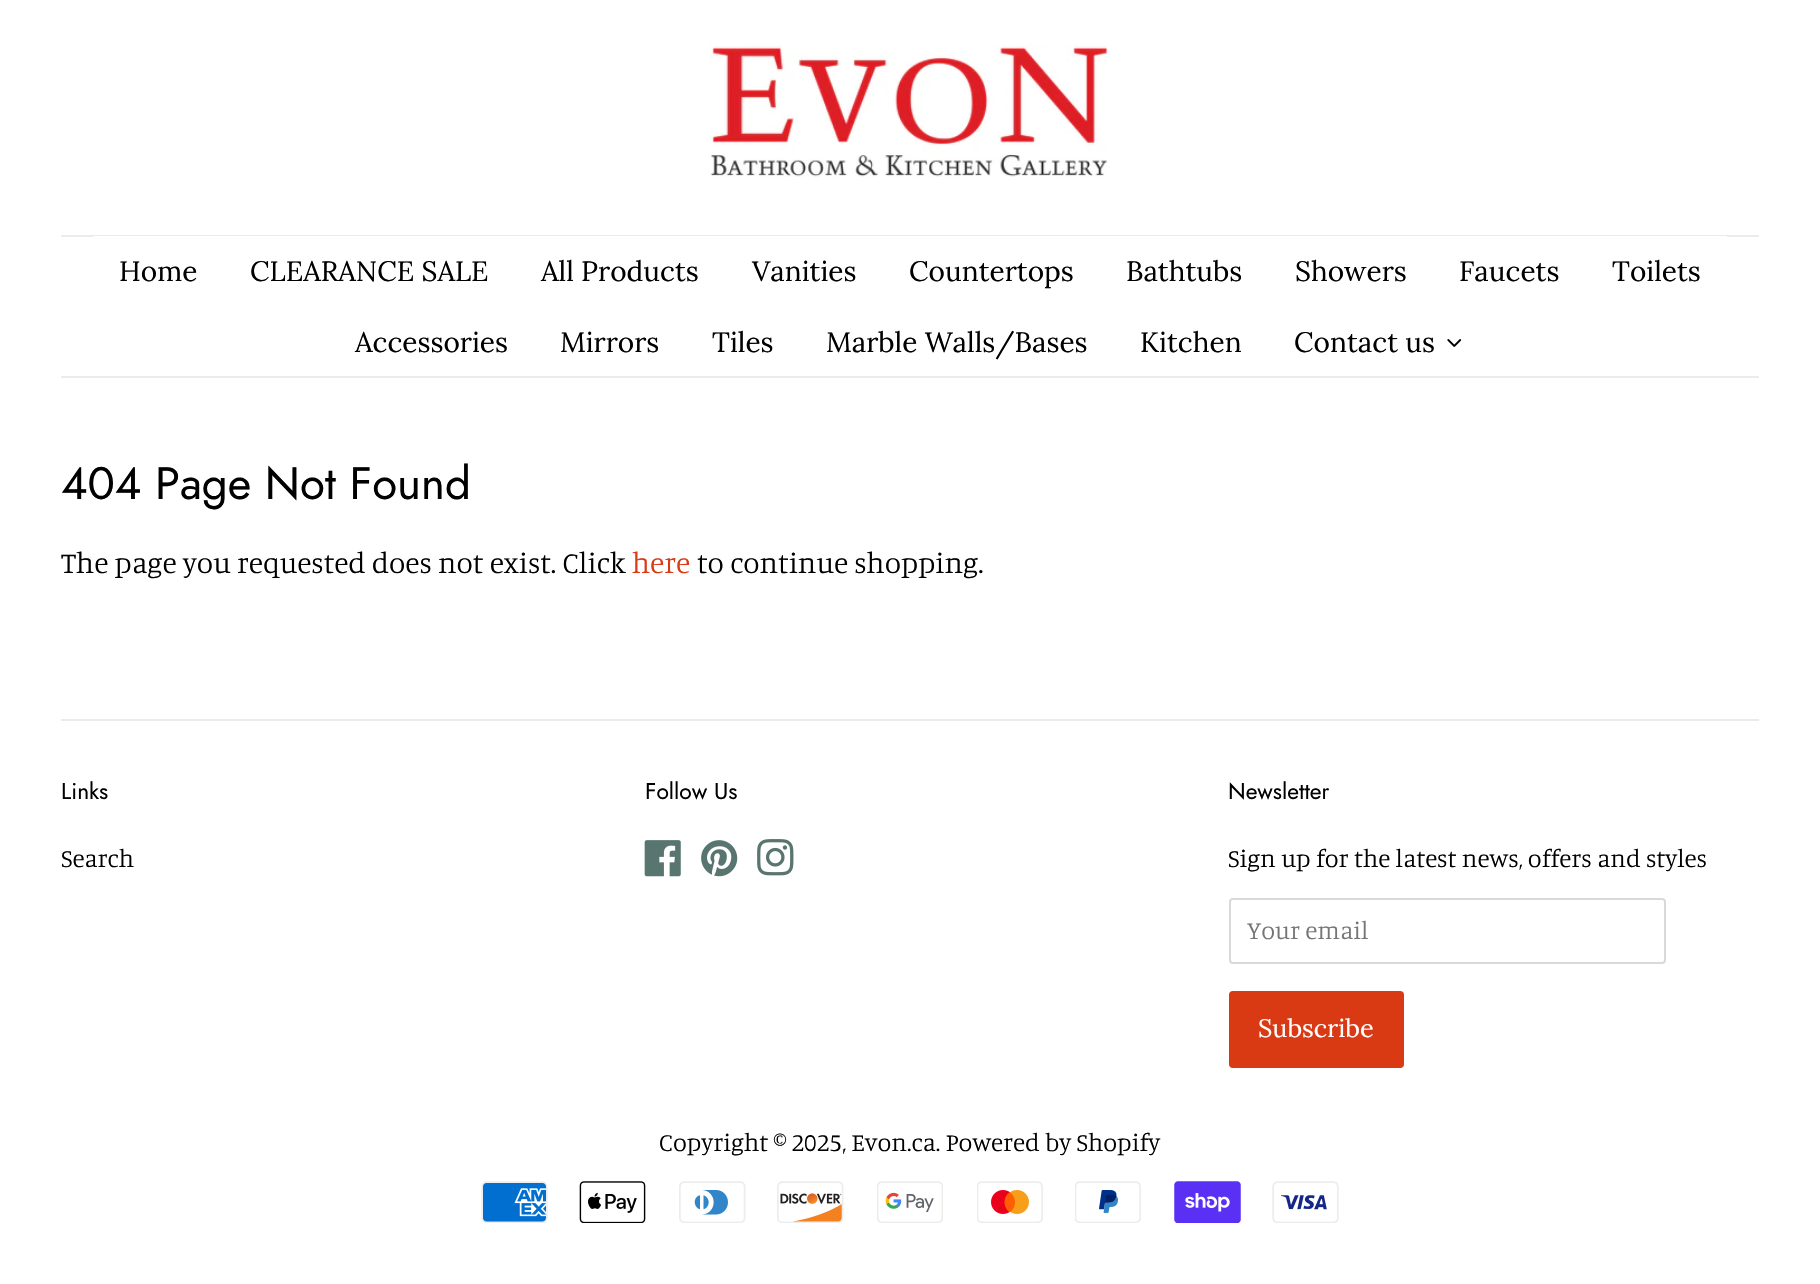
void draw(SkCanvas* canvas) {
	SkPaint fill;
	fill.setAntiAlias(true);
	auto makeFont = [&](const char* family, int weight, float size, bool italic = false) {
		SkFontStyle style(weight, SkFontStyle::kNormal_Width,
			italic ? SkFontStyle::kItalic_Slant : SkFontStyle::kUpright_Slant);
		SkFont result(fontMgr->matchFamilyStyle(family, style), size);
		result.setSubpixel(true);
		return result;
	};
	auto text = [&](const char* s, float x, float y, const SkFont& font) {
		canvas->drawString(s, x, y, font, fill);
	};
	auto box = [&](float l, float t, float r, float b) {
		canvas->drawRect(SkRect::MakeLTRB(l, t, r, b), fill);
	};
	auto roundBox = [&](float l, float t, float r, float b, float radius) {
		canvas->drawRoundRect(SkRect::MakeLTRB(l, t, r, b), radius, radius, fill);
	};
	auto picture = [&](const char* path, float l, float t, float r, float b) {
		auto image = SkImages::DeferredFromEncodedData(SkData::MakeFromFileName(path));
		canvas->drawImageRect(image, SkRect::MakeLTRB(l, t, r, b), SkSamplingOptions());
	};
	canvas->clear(0xFFFFFFFF);
	picture("image0.png", 709, 44, 1108, 177);
	fill.setColor(0xFFEBEBEB);
	box(61, 235, 1759, 237);
	box(61, 376, 1759, 378);
	fill.setColor(0xFFFFFFFF);
	box(93, 236, 224, 237);
	box(224, 236, 1727, 237);
	picture("image1.png", 1447, 339, 1462, 347);
	fill.setColor(0xFFEBEBEB);
	box(61, 719, 1759, 721);
	picture("image2.png", 644, 840, 681, 877);
	picture("image3.png", 701, 840, 738, 877);
	picture("image4.png", 757, 839, 794, 876);
	fill.setStyle(SkPaint::kStroke_Style);
	fill.setStrokeWidth(2);
	fill.setColor(0xFFD9D9D9);
	canvas->drawRoundRect(SkRect::MakeLTRB(1230, 899, 1665, 963), 3, 3, fill);
	fill.setStyle(SkPaint::kFill_Style);
	fill.setColor(0xFFD93A14);
	roundBox(1229, 991, 1404, 1068, 4);
	picture("image5.png", 481, 1181, 548, 1223);
	picture("image6.png", 579, 1181, 646, 1223);
	picture("image7.png", 679, 1181, 746, 1223);
	picture("image8.png", 777, 1181, 844, 1223);
	picture("image9.png", 877, 1181, 943, 1223);
	picture("image10.png", 977, 1181, 1043, 1223);
	picture("image11.png", 1075, 1181, 1141, 1223);
	picture("image12.png", 1174, 1181, 1241, 1223);
	picture("image13.png", 1272, 1181, 1339, 1223);
	auto font1 = makeFont("Lora", 400, 28);
	fill.setColor(0xFF000000);
	text("Home", 119, 281, font1);
	text("CLEARANCE SALE", 250, 281, font1);
	text("All Products", 541, 281, font1);
	text("Vanities", 752, 281, font1);
	text("Countertops", 909, 281, font1);
	text("Bathtubs", 1126, 281, font1);
	text("Showers", 1295, 281, font1);
	text("Faucets", 1459, 281, font1);
	text("Toilets", 1612, 281, font1);
	text("Accessories", 355, 352, font1);
	text("Mirrors", 560, 352, font1);
	text("Tiles", 712, 352, font1);
	text("Marble Walls/Bases", 826, 352, font1);
	text("Kitchen", 1140, 352, font1);
	text("Contact us", 1294, 352, font1);
	auto font2 = makeFont("Jost", 400, 45.5f);
	text("404 Page Not Found", 61, 499, font2);
	auto font3 = makeFont("Manuale", 300, 29.75f);
	text("The page you requested does not exist. Click", 61, 573, font3);
	fill.setColor(0xFFD93A14);
	text("here", 632, 573, font3);
	fill.setColor(0xFF000000);
	text("to continue shopping.", 697, 573, font3);
	auto font4 = makeFont("Jost", 400, 22.75f);
	text("Links", 61, 799, font4);
	auto font5 = makeFont("Manuale", 300, 25.25f);
	text("Search", 61, 867, font5);
	text("Follow Us", 645, 799, font4);
	text("Newsletter", 1228, 799, font4);
	text("Sign up for the latest news, offers and styles", 1228, 867, font5);
	fill.setColor(0xFF757575);
	text("Your email", 1247, 939, font5);
	auto font6 = makeFont("Lora", 400, 25.25f);
	fill.setColor(0xFFFFFFFF);
	text("Subscribe", 1258, 1037, font6);
	fill.setColor(0xFF000000);
	text("Copyright © 2025, Evon.ca. Powered by Shopify", 659, 1151, font5);
}
